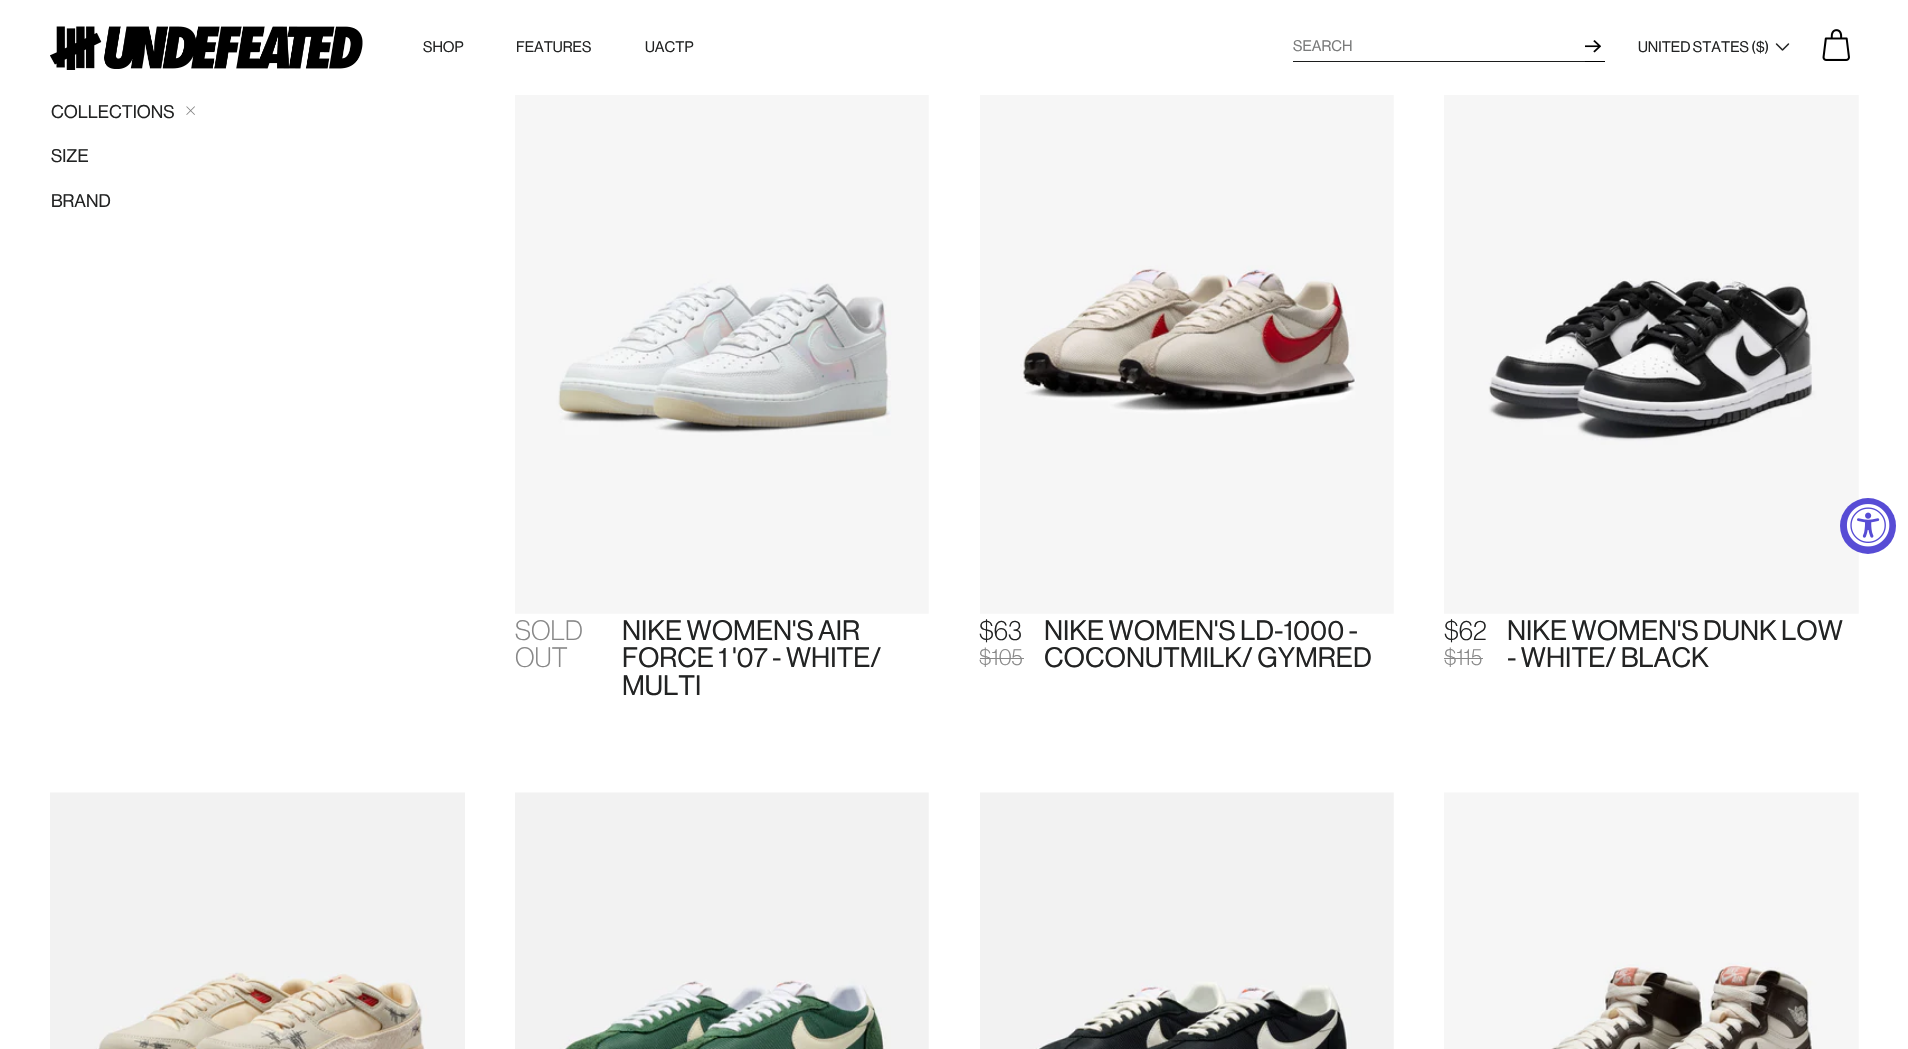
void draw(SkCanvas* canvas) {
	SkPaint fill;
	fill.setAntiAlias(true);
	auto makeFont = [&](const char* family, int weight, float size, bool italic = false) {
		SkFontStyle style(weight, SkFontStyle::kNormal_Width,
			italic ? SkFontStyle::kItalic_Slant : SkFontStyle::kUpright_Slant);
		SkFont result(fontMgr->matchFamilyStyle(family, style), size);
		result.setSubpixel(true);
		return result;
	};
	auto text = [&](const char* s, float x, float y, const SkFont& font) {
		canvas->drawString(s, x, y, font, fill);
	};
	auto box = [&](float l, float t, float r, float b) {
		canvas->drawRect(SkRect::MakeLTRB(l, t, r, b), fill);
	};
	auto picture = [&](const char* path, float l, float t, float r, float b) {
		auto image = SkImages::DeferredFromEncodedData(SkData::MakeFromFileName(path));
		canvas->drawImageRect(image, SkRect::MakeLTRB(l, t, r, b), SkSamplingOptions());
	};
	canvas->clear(0xFFFFFFFF);
	picture("image0.png", 50, 26, 363, 70);
	fill.setColor(0xFF1C1D1D);
	box(1293, 61, 1585, 62);
	fill.setColor(0xFF000000);
	box(1585, 61, 1605, 62);
	picture("image1.png", 1585, 40, 1601, 53);
	picture("image2.png", 1775, 43, 1790, 51);
	picture("image3.png", 1822, 29, 1850, 61);
	picture("image4.png", 186, 106, 195, 115);
	picture("image5.png", 515, 95, 929, 614);
	picture("image6.png", 980, 95, 1394, 614);
	fill.setColor(0xFF888888);
	box(980, 658, 1024, 659);
	picture("image7.png", 1444, 95, 1859, 614);
	box(1444, 658, 1483, 659);
	picture("image8.png", 50, 792, 465, 1049);
	picture("image9.png", 515, 792, 929, 1049);
	picture("image10.png", 980, 792, 1394, 1049);
	picture("image11.png", 1444, 792, 1859, 1049);
	fill.setColor(0xFF574CD5);
	canvas->drawCircle(1868, 526, 28, fill);
	picture("image12.png", 1846, 504, 1890, 547);
	auto font1 = makeFont("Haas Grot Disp", 400, 15);
	fill.setColor(0xFF222323);
	text("SHOP", 423, 52, font1);
	text("FEATURES", 516, 52, font1);
	text("UACTP", 645, 52, font1);
	fill.setColor(0xFF7A7B7B);
	text("SEARCH", 1293, 51, font1);
	fill.setColor(0xFF222323);
	text("UNITED STATES ($)", 1638, 52, font1);
	auto font2 = makeFont("Haas Grot Disp", 400, 18);
	text("COLLECTIONS", 51, 118, font2);
	text("SIZE", 51, 162, font2);
	text("BRAND", 51, 207, font2);
	auto font3 = makeFont("Haas Grot Disp", 100, 27.5f);
	fill.setColor(0xFF888888);
	text("SOLD", 515, 640, font3);
	text("OUT", 515, 667, font3);
	auto font4 = makeFont("Haas Grot Disp", 400, 27.5f);
	fill.setColor(0xFF222323);
	text("NIKE WOMEN'S AIR", 622, 640, font4);
	text("FORCE 1 '07 - WHITE/", 622, 667, font4);
	text("MULTI", 622, 695, font4);
	text("$63", 979, 640, font3);
	auto font5 = makeFont("Haas Grot Disp", 100, 23);
	fill.setColor(0xFF888888);
	text("$105", 979, 665, font5);
	fill.setColor(0xFF222323);
	text("NIKE WOMEN'S LD-1000 -", 1044, 640, font4);
	text("COCONUTMILK/ GYMRED", 1044, 667, font4);
	text("$62", 1444, 640, font3);
	fill.setColor(0xFF888888);
	text("$115", 1444, 665, font5);
	fill.setColor(0xFF222323);
	text("NIKE WOMEN'S DUNK LOW", 1507, 640, font4);
	text("- WHITE/ BLACK", 1507, 667, font4);
}
